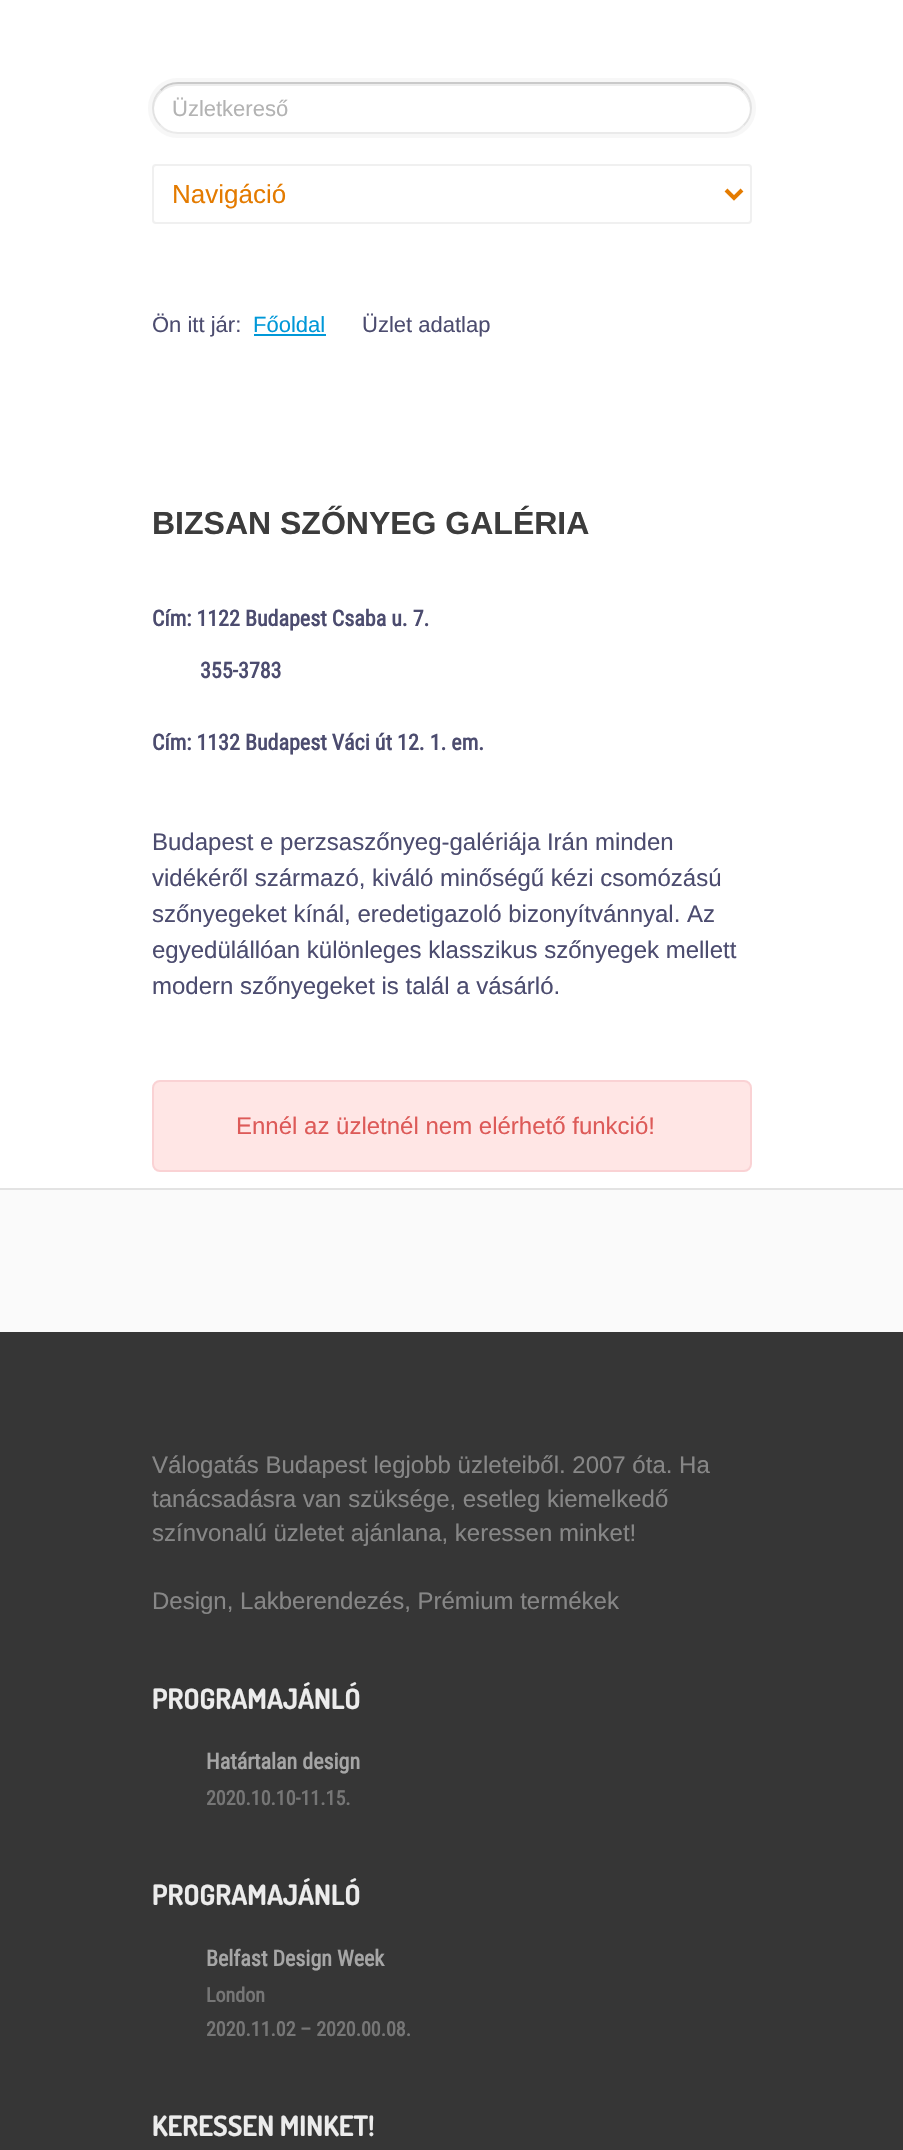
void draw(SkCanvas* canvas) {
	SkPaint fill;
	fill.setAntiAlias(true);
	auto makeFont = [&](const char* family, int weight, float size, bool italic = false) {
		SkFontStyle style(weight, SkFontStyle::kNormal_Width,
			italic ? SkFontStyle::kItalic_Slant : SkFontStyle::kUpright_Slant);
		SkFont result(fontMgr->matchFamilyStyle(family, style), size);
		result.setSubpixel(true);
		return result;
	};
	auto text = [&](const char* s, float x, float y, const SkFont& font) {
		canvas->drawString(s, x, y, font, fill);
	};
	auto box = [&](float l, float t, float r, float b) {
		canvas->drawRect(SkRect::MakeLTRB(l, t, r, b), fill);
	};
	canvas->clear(0xFFFFFFFF);
	fill.setStyle(SkPaint::kStroke_Style);
	fill.setStrokeWidth(4);
	fill.setColor(0xFFF7F7F7);
	canvas->drawRoundRect(SkRect::MakeLTRB(150, 80, 754, 136), 28, 28, fill);
	fill.setStyle(SkPaint::kFill_Style);
	fill.setColor(0xFFEDEDED);
	canvas->drawPath(SkPathBuilder().moveTo(178, 86).lineTo(726, 86).cubicTo(739, 86, 749, 96, 750, 109).cubicTo(751, 96, 739, 84, 726, 84).lineTo(178, 84).cubicTo(165, 84, 153, 96, 154, 109).cubicTo(155, 96, 165, 86, 178, 86).close().detach(), fill);
	fill.setStyle(SkPaint::kStroke_Style);
	fill.setStrokeWidth(2);
	fill.setColor(0xFFCACACA);
	canvas->drawPath(SkPathBuilder().moveTo(160.5f, 90.5f).cubicTo(165, 85.5f, 171.5f, 83, 178, 83).lineTo(726, 83).cubicTo(732.5f, 83, 739, 85.5f, 743.5f, 90.5f).detach(), fill);
	fill.setColor(0xFFE2E2E2);
	canvas->drawPath(SkPathBuilder().moveTo(743.5f, 90.5f).cubicTo(753.5f, 100, 753.5f, 116, 743.5f, 125.5f).detach(), fill);
	fill.setColor(0xFFEAEAEA);
	canvas->drawPath(SkPathBuilder().moveTo(743.5f, 125.5f).cubicTo(739, 130.5f, 732.5f, 133, 726, 133).lineTo(178, 133).cubicTo(171.5f, 133, 165, 130.5f, 160.5f, 125.5f).detach(), fill);
	fill.setColor(0xFFE2E2E2);
	canvas->drawPath(SkPathBuilder().moveTo(160.5f, 125.5f).cubicTo(150.5f, 116, 150.5f, 100, 160.5f, 90.5f).detach(), fill);
	fill.setColor(0xFFF0F0F0);
	canvas->drawRoundRect(SkRect::MakeLTRB(153, 165, 751, 223), 3, 3, fill);
	fill.setStrokeWidth(4);
	fill.setColor(0xFFE47B00);
	canvas->drawPath(SkPathBuilder().moveTo(726, 190).lineTo(734, 198).lineTo(742, 190).detach(), fill);
	fill.setStyle(SkPaint::kFill_Style);
	fill.setColor(0xFF0098D8);
	box(254, 334, 326, 336);
	fill.setColor(0xFFFFE6E5);
	canvas->drawRoundRect(SkRect::MakeLTRB(153, 1081, 751, 1171), 7, 7, fill);
	fill.setStyle(SkPaint::kStroke_Style);
	fill.setStrokeWidth(2);
	fill.setColor(0xFFFAD2D4);
	canvas->drawRoundRect(SkRect::MakeLTRB(153, 1081, 751, 1171), 7, 7, fill);
	fill.setStyle(SkPaint::kFill_Style);
	fill.setColor(0xFFFAFAFA);
	box(0, 1190, 903, 1332);
	fill.setColor(0xFFE3E3E3);
	box(0, 1188, 903, 1190);
	fill.setColor(0xFF363636);
	box(0, 1332, 903, 2150);
	auto font1 = makeFont("Liberation Sans", 400, 22);
	fill.setColor(0xFFB3B3B3);
	text("Üzletkereső", 172, 116, font1);
	auto font2 = makeFont("Liberation Sans", 400, 26);
	fill.setColor(0xFFE47B00);
	text("Navigáció", 172, 203, font2);
	fill.setColor(0xFF4C4C6F);
	text("Ön itt jár:", 152, 332, font1);
	fill.setColor(0xFF0098D8);
	text("Főoldal", 253, 332, font1);
	fill.setColor(0xFF4C4C6F);
	text("Üzlet adatlap", 362, 332, font1);
	auto font3 = makeFont("Liberation Sans", 700, 32);
	fill.setColor(0xFF3C3C3C);
	text("BIZSAN SZŐNYEG GALÉRIA", 152, 534, font3);
	auto font4 = makeFont("Roboto Condensed", 700, 22);
	fill.setColor(0xFF4C4C6F);
	text("Cím: 1122 Budapest Csaba u. 7.", 152, 626, font4);
	text("355-3783", 200, 678, font4);
	text("Cím: 1132 Budapest Váci út 12. 1. em.", 152, 750, font4);
	auto font5 = makeFont("Liberation Sans", 400, 24);
	text("Budapest e perzsaszőnyeg-galériája Irán minden", 152, 850, font5);
	text("vidékéről származó, kiváló minőségű kézi csomózású", 152, 886, font5);
	text("szőnyegeket kínál, eredetigazoló bizonyítvánnyal. Az", 152, 922, font5);
	text("egyedülállóan különleges klasszikus szőnyegek mellett", 152, 958, font5);
	text("modern szőnyegeket is talál a vásárló.", 152, 994, font5);
	fill.setColor(0xFFDD5A58);
	text("Ennél az üzletnél nem elérhető funkció!", 236, 1134, font5);
	fill.setColor(0xFF878787);
	text("Válogatás Budapest legjobb üzleteiből. 2007 óta. Ha", 152, 1473, font5);
	text("tanácsadásra van szüksége, esetleg kiemelkedő", 152, 1507, font5);
	text("színvonalú üzletet ajánlana, keressen minket!", 152, 1541, font5);
	text("Design, Lakberendezés, Prémium termékek", 152, 1609, font5);
	auto font6 = makeFont("Dosis", 700, 28);
	fill.setColor(0xFFECECEC);
	text("PROGRAMAJÁNLÓ", 152, 1709, font6);
	fill.setColor(0xFFA6A6A6);
	text("Határtalan design", 206, 1769, font4);
	auto font7 = makeFont("Roboto Condensed", 700, 20);
	fill.setColor(0xFF767676);
	text("2020.10.10-11.15.", 206, 1805, font7);
	fill.setColor(0xFFECECEC);
	text("PROGRAMAJÁNLÓ", 152, 1905, font6);
	fill.setColor(0xFFA6A6A6);
	text("Belfast Design Week", 206, 1966, font4);
	fill.setColor(0xFF767676);
	text("London", 206, 2002, font7);
	text("2020.11.02 – 2020.00.08.", 206, 2036, font7);
	fill.setColor(0xFFECECEC);
	text("KERESSEN MINKET!", 152, 2136, font6);
}
